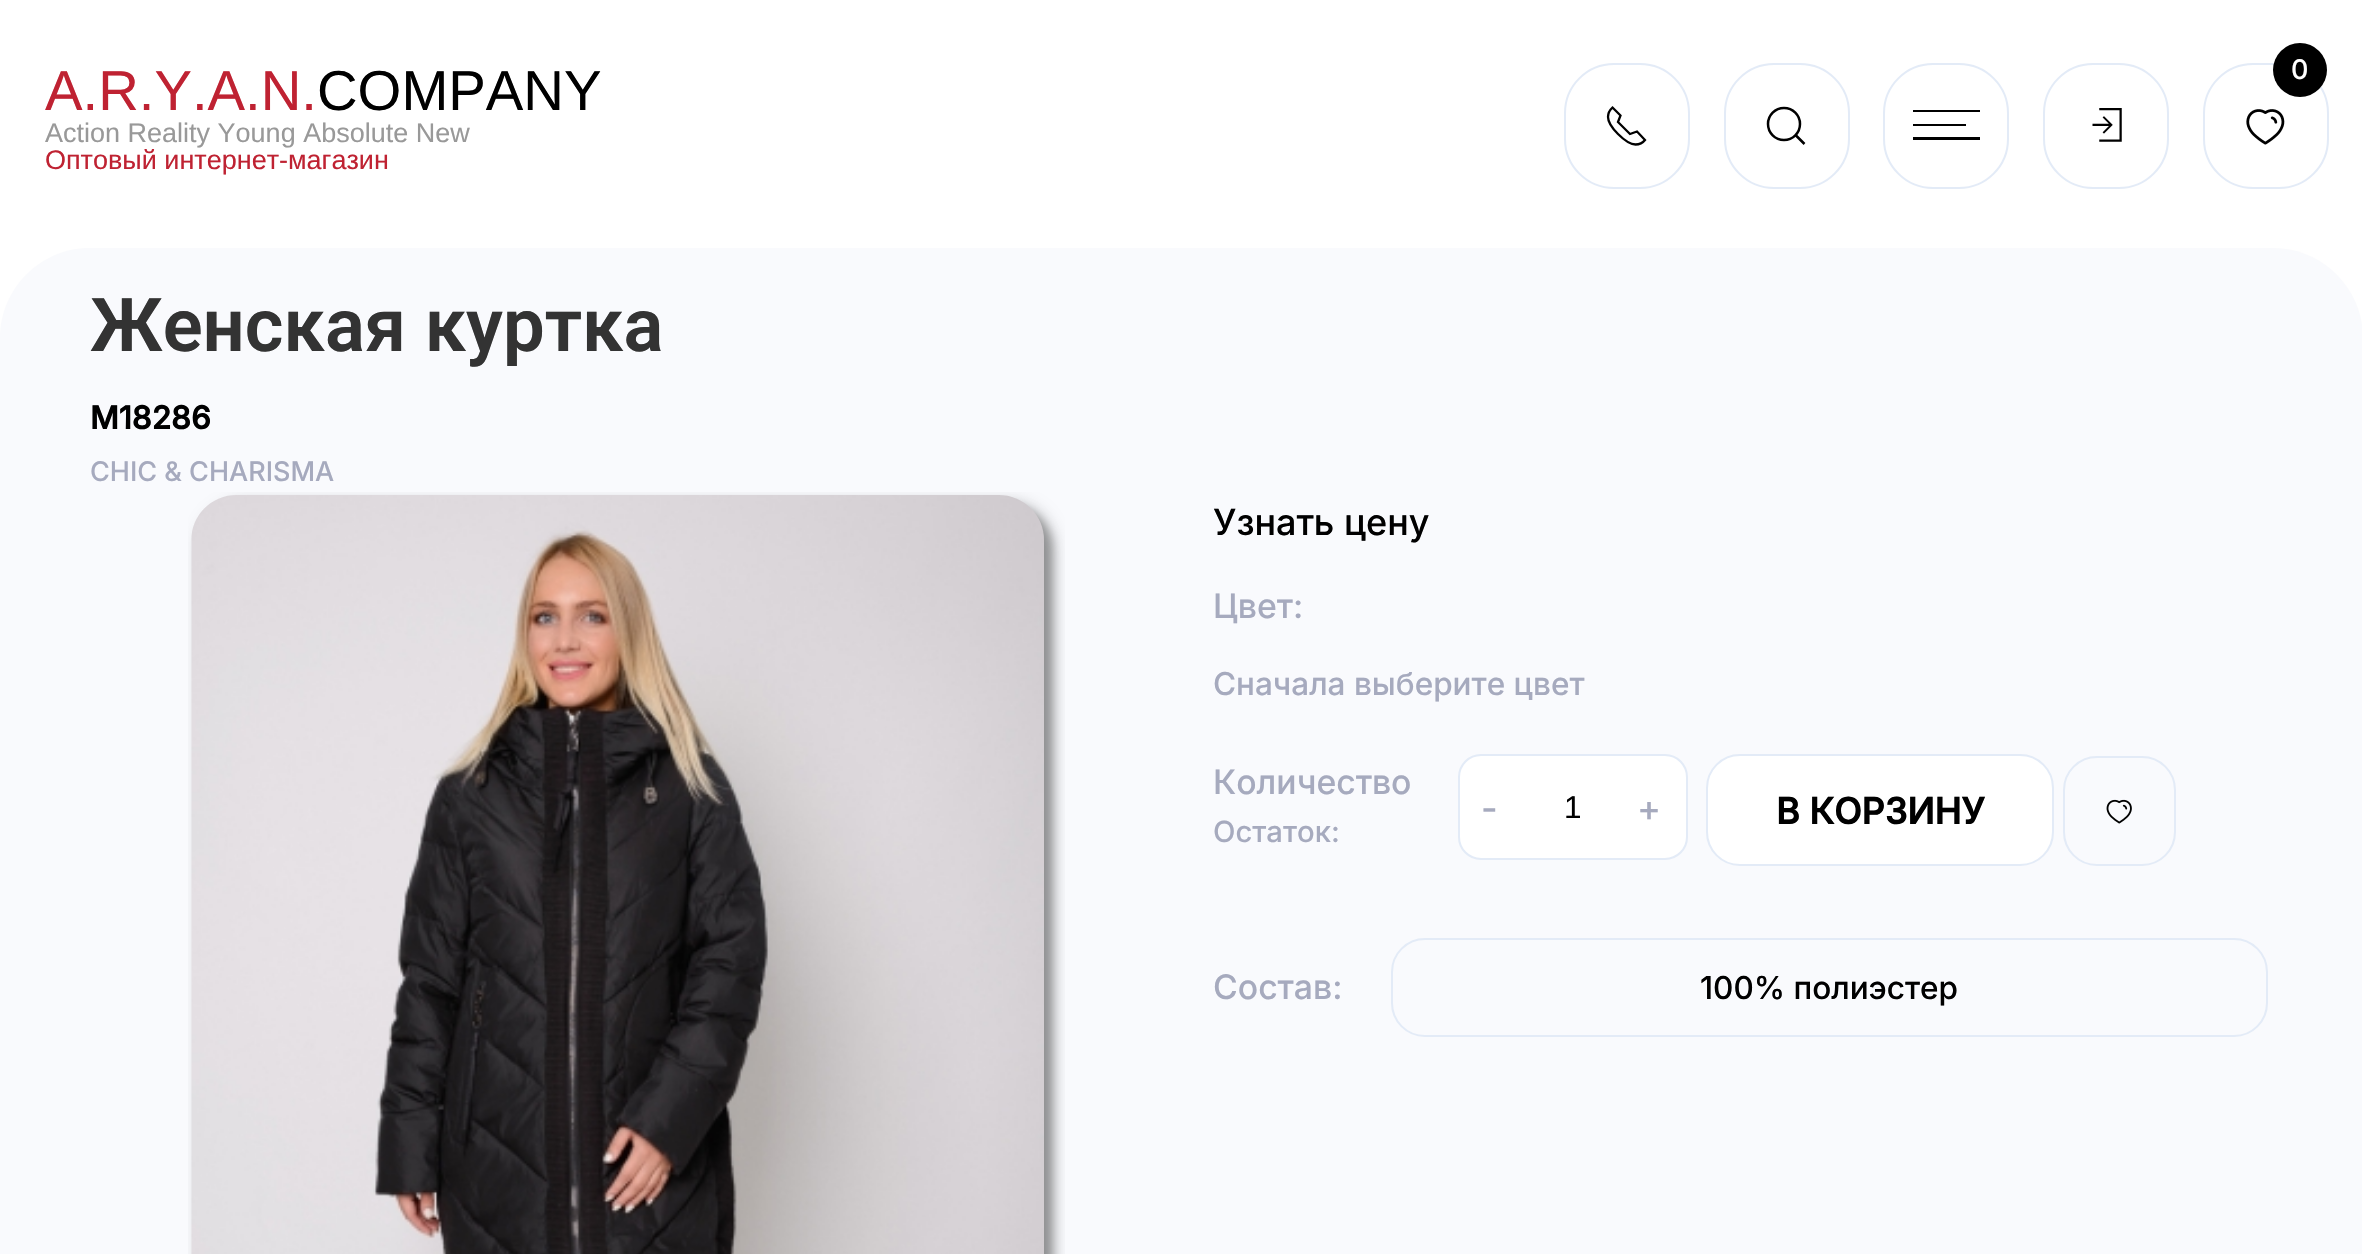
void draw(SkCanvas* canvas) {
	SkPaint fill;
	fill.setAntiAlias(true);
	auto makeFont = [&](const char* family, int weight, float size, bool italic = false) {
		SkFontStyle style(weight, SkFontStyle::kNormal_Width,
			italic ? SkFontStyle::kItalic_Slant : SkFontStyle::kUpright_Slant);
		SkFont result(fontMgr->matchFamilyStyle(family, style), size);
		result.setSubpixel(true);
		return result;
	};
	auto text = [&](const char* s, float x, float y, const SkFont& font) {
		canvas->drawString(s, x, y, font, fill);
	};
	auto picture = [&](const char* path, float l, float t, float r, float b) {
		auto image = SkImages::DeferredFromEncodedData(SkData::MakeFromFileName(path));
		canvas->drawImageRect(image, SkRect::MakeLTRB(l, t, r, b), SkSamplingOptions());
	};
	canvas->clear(0xFFFFFFFF);
	fill.setStyle(SkPaint::kStroke_Style);
	fill.setStrokeWidth(2);
	fill.setColor(0xFFE3EBF7);
	canvas->drawRoundRect(SkRect::MakeLTRB(1565, 64, 1689, 188), 49, 49, fill);
	fill.setStrokeWidth(2.3f);
	fill.setColor(0xFF000000);
	canvas->drawPath(SkPathBuilder().moveTo(1618, 134).cubicTo(1622.5f, 138.5f, 1629, 144.5f, 1635.5f, 144.5f).cubicTo(1641.5f, 144.5f, 1645, 140, 1645, 140).lineTo(1637, 131.5f).lineTo(1630, 134).lineTo(1618, 122).lineTo(1620.5f, 115.5f).lineTo(1612.5f, 107.5f).cubicTo(1612.5f, 107.5f, 1608, 111.5f, 1608, 117).cubicTo(1608, 123.5f, 1614, 130, 1618, 134).detach(), fill);
	fill.setStrokeWidth(2);
	fill.setColor(0xFFE3EBF7);
	canvas->drawRoundRect(SkRect::MakeLTRB(1725, 64, 1849, 188), 49, 49, fill);
	fill.setStrokeWidth(2.5f);
	fill.setColor(0xFF000000);
	canvas->drawCircle(1784, 124, 16, fill);
	canvas->drawPath(SkPathBuilder().moveTo(1795.5f, 135).lineTo(1804.5f, 144).close().detach(), fill);
	fill.setStrokeWidth(2);
	fill.setColor(0xFFE3EBF7);
	canvas->drawRoundRect(SkRect::MakeLTRB(1884, 64, 2008, 188), 49, 49, fill);
	canvas->save();
	canvas->clipRect(SkRect::MakeLTRB(1913, 110, 1980, 140));
	fill.setStyle(SkPaint::kFill_Style);
	fill.setColor(0xFF000000);
	canvas->drawPath(SkPathBuilder().moveTo(1912, 140).lineTo(1912, 137).lineTo(1980, 137).lineTo(1980, 140).close().moveTo(1912, 126).lineTo(1912, 124).lineTo(1966, 124).lineTo(1966, 126).close().moveTo(1912, 112).lineTo(1912, 110).lineTo(1980, 110).lineTo(1980, 112).close().detach(), fill);
	canvas->restore();
	fill.setStyle(SkPaint::kStroke_Style);
	fill.setColor(0xFFE3EBF7);
	canvas->drawRoundRect(SkRect::MakeLTRB(2044, 64, 2168, 188), 49, 49, fill);
	picture("image0.png", 2092, 108, 2122, 142);
	canvas->drawRoundRect(SkRect::MakeLTRB(2204, 64, 2328, 188), 49, 49, fill);
	fill.setStyle(SkPaint::kFill_Style);
	fill.setColor(0xFF000000);
	canvas->drawCircle(2300, 70, 27, fill);
	picture("image1.png", 2246, 109, 2285, 145);
	fill.setColor(0xFFF9FAFD);
	canvas->drawPath(SkPathBuilder().moveTo(90, 248).lineTo(2273, 248).cubicTo(2322.5f, 248, 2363, 288.5f, 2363, 338).lineTo(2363, 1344).lineTo(0, 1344).lineTo(0, 338).cubicTo(0, 288.5f, 40.5f, 248, 90, 248).close().detach(), fill);
	fill.setColor(0x40000000);
	fill.setMaskFilter(SkMaskFilter::MakeBlur(kNormal_SkBlurStyle, 4.5f));
	canvas->drawRoundRect(SkRect::MakeLTRB(200, 504, 1053, 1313), 45, 45, fill);
	fill.setMaskFilter(nullptr);
	picture("image2.png", 188, 492, 1065, 1254);
	fill.setColor(0xFFFFFFFF);
	canvas->drawRoundRect(SkRect::MakeLTRB(1459, 755, 1687, 859), 22, 22, fill);
	fill.setStyle(SkPaint::kStroke_Style);
	fill.setColor(0xFFE3EBF7);
	canvas->drawRoundRect(SkRect::MakeLTRB(1459, 755, 1687, 859), 22, 22, fill);
	fill.setStyle(SkPaint::kFill_Style);
	fill.setColor(0xFFFFFFFF);
	canvas->drawRoundRect(SkRect::MakeLTRB(1707, 755, 2053, 865), 33, 33, fill);
	fill.setStyle(SkPaint::kStroke_Style);
	fill.setColor(0xFFE3EBF7);
	canvas->drawRoundRect(SkRect::MakeLTRB(1707, 755, 2053, 865), 33, 33, fill);
	canvas->drawRoundRect(SkRect::MakeLTRB(2064, 757, 2175, 865), 33, 33, fill);
	picture("image3.png", 2106, 799, 2132, 824);
	canvas->drawRoundRect(SkRect::MakeLTRB(1392, 939, 2267, 1036), 33, 33, fill);
	auto font1 = makeFont("Liberation Sans", 400, 56.25f);
	fill.setStyle(SkPaint::kFill_Style);
	fill.setColor(0xFFBF2232);
	text("A.R.Y.A.N.", 45, 110, font1);
	fill.setColor(0xFF000000);
	text("COMPANY", 317, 110, font1);
	auto font2 = makeFont("Liberation Sans", 400, 27);
	fill.setColor(0xFF999999);
	text("Аction Reality Young Absolute New", 45, 142, font2);
	fill.setColor(0xFFBF2232);
	text("Оптовый интернет-магазин", 45, 169, font2);
	auto font3 = makeFont("Inter", 500, 27);
	fill.setColor(0xFFFFFFFF);
	text("0", 2291, 79, font3);
	auto font4 = makeFont("Roboto", 600, 74.25f);
	fill.setColor(0xFF333333);
	text("Женская куртка", 90, 351, font4);
	auto font5 = makeFont("Inter", 700, 31.5f);
	fill.setColor(0xFF000000);
	text("M18286", 90, 429, font5);
	fill.setColor(0xFFA6AABE);
	text("CHIC & CHARISMA", 90, 481, font3);
	auto font6 = makeFont("Inter", 500, 36);
	fill.setColor(0xFF000000);
	text("Узнать цену", 1213, 535, font6);
	auto font7 = makeFont("Inter", 500, 33.75f);
	fill.setColor(0xFFA6AABE);
	text("Цвет:", 1213, 618, font7);
	auto font8 = makeFont("Inter", 500, 31.5f);
	text("Сначала выберите цвет", 1213, 695, font8);
	text("Количество", 1213, 794, font7);
	auto font9 = makeFont("Inter", 500, 29.25f);
	text("Остаток:", 1213, 842, font9);
	text("-", 1481, 821, font6);
	auto font10 = makeFont("Liberation Sans", 400, 31.5f);
	fill.setColor(0xFF000000);
	text("1", 1564, 818, font10);
	fill.setColor(0xFFA6AABE);
	text("+", 1637, 821, font6);
	auto font11 = makeFont("Inter", 700, 36);
	fill.setColor(0xFF000000);
	text("В КОРЗИНУ", 1776, 824, font11);
	fill.setColor(0xFFA6AABE);
	text("Состав:", 1213, 999, font7);
	fill.setColor(0xFF000000);
	text("100% полиэстер", 1700, 999, font8);
}
